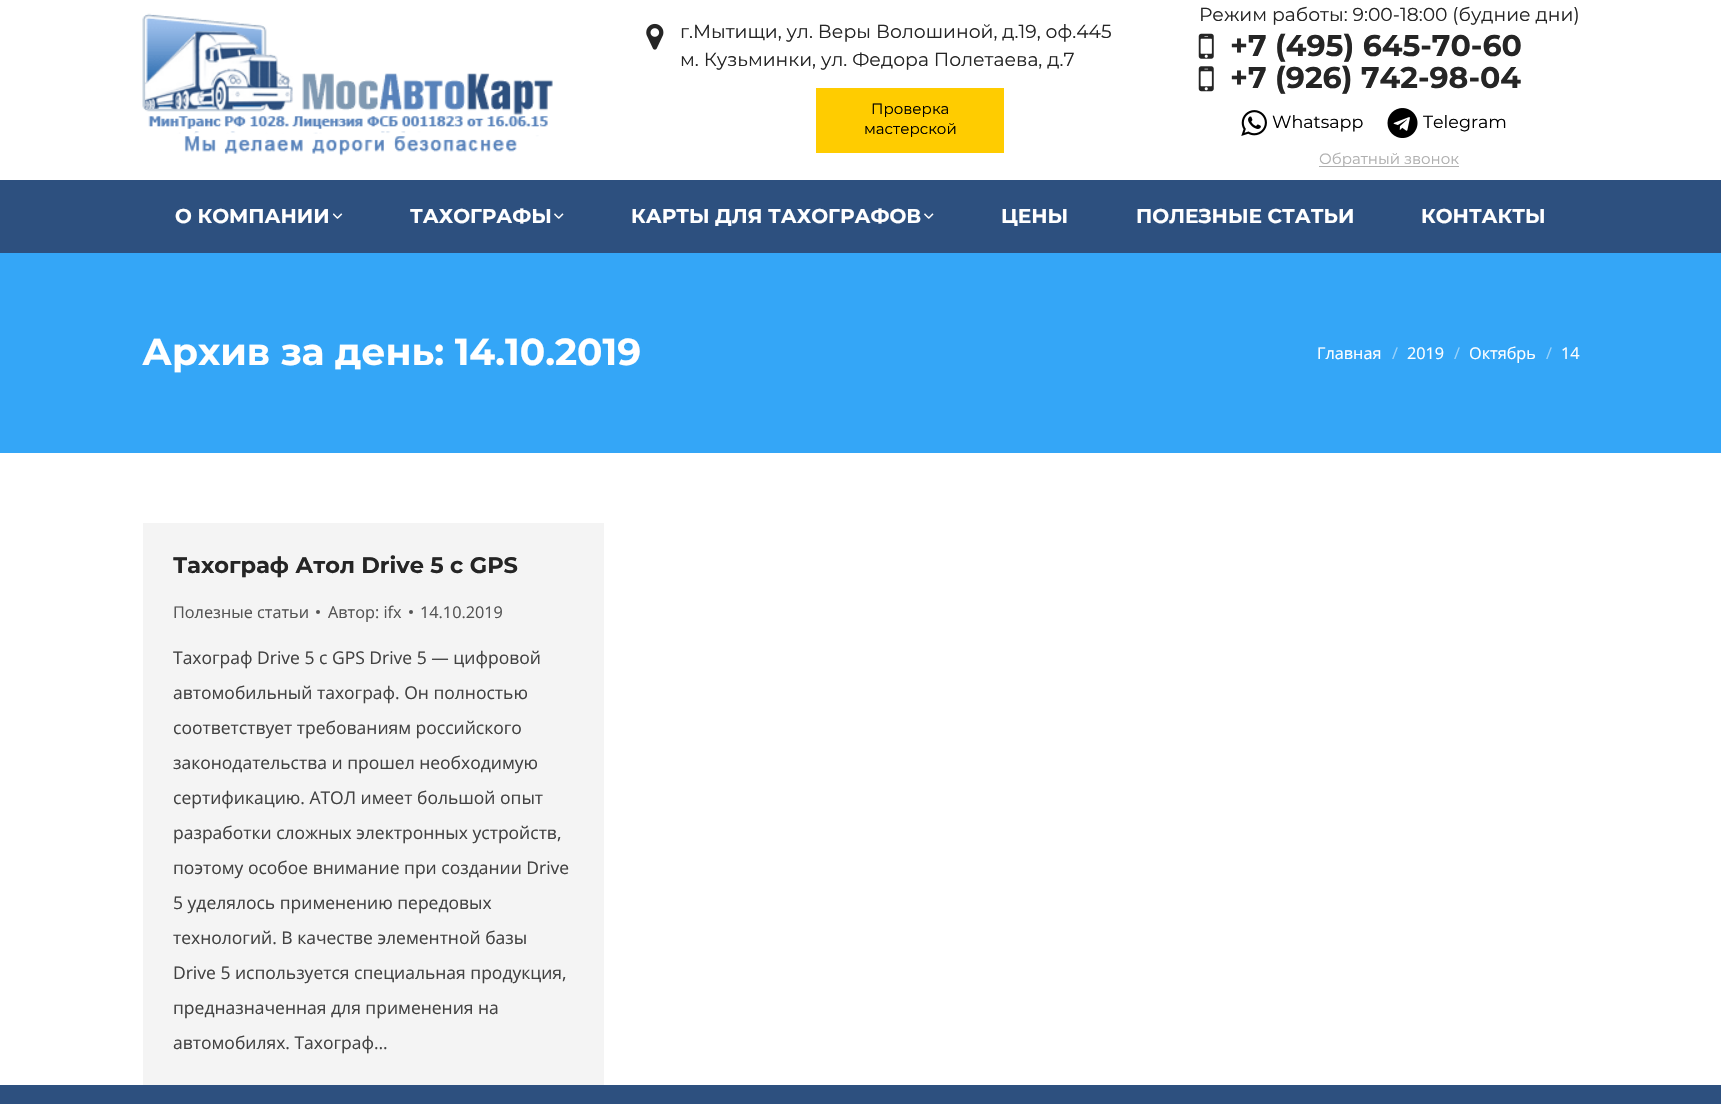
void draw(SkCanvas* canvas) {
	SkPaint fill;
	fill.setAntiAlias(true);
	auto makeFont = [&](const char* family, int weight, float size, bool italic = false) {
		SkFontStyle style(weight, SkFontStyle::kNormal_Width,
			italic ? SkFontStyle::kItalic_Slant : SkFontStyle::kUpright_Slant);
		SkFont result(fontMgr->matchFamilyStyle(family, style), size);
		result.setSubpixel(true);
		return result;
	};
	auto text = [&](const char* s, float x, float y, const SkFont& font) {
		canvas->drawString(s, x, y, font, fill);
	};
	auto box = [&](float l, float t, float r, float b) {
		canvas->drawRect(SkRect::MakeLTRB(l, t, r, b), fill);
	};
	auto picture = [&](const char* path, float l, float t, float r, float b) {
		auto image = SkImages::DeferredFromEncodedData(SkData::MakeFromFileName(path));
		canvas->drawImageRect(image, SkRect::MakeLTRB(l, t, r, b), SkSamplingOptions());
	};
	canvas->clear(0xFFFFFFFF);
	picture("image0.png", 142, 13, 553, 156);
	picture("image1.png", 646, 23, 664, 50);
	fill.setColor(0xFFFFCC00);
	box(816, 88, 1004, 153);
	picture("image2.png", 1198, 33, 1214, 59);
	picture("image3.png", 1198, 66, 1214, 92);
	picture("image4.png", 1241, 110, 1267, 136);
	picture("image5.png", 1387, 108, 1418, 138);
	fill.setColor(0xFFAFAFAF);
	box(1319, 166, 1459, 167);
	fill.setColor(0xFF2D507F);
	box(0, 180, 1721, 253);
	picture("image6.png", 333, 213, 343, 219);
	picture("image7.png", 554, 213, 564, 219);
	picture("image7.png", 924, 213, 934, 219);
	fill.setColor(0xFF34A6F7);
	box(0, 253, 1721, 453);
	fill.setColor(0xFFF4F4F4);
	box(143, 523, 604, 1085);
	fill.setColor(0xFF545454);
	canvas->drawCircle(318, 612, 2, fill);
	canvas->drawCircle(411, 612, 2, fill);
	fill.setColor(0xFF2D507F);
	box(0, 1085, 1721, 1104);
	auto font1 = makeFont("Montserrat", 400, 18.75f);
	fill.setColor(0xFF252525);
	text("г.Мытищи, ул. Веры Волошиной, д.19, оф.445", 680, 38, font1);
	text("м. Кузьминки, ул. Федора Полетаева, д.7", 680, 66, font1);
	auto font2 = makeFont("Montserrat", 400, 15);
	fill.setColor(0xFF000000);
	text("Проверка", 871, 114, font2);
	text("мастерской", 864, 134, font2);
	fill.setColor(0xFF252525);
	text("Режим работы: 9:00-18:00 (будние дни)", 1199, 21, font1);
	auto font3 = makeFont("Montserrat", 700, 30);
	text("+7 (495) 645-70-60", 1230, 56, font3);
	text("+7 (926) 742-98-04", 1230, 88, font3);
	auto font4 = makeFont("Montserrat", 400, 17.5f);
	fill.setColor(0xFF000000);
	text("Whatsapp", 1272, 128, font4);
	text("Telegram", 1423, 128, font4);
	fill.setColor(0xFFAFAFAF);
	text("Обратный звонок", 1319, 164, font2);
	auto font5 = makeFont("Montserrat", 700, 20);
	fill.setColor(0xFFFFFFFF);
	text("О КОМПАНИИ", 175, 223, font5);
	text("ТАХОГРАФЫ", 410, 223, font5);
	text("КАРТЫ ДЛЯ ТАХОГРАФОВ", 631, 223, font5);
	text("ЦЕНЫ", 1001, 223, font5);
	text("ПОЛЕЗНЫЕ СТАТЬИ", 1136, 223, font5);
	text("КОНТАКТЫ", 1421, 223, font5);
	auto font6 = makeFont("Montserrat", 700, 37.5f);
	text("Архив за день: 14.10.2019", 142, 365, font6);
	auto font7 = makeFont("Open Sans", 400, 16.25f);
	text("Главная", 1317, 359, font7);
	fill.setColor(0xFF9AD3FB);
	text("/", 1392, 359, font7);
	fill.setColor(0xFFFFFFFF);
	text("2019", 1407, 359, font7);
	fill.setColor(0xFF9AD3FB);
	text("/", 1454, 359, font7);
	fill.setColor(0xFFFFFFFF);
	text("Октябрь", 1469, 359, font7);
	fill.setColor(0xFF9AD3FB);
	text("/", 1546, 359, font7);
	fill.setColor(0xFFFFFFFF);
	text("14", 1561, 359, font7);
	auto font8 = makeFont("Montserrat", 700, 22.5f);
	fill.setColor(0xFF252525);
	text("Тахограф Атол Drive 5 с GPS", 173, 573, font8);
	fill.setColor(0xFF545454);
	text("Полезные статьи", 173, 618, font7);
	text("Автор: ifx", 328, 618, font7);
	text("14.10.2019", 420, 618, font7);
	auto font9 = makeFont("Open Sans", 400, 17.5f);
	fill.setColor(0xFF424242);
	text("Тахограф Drive 5 с GPS Drive 5 — цифровой", 173, 664, font9);
	text("автомобильный тахограф. Он полностью", 173, 699, font9);
	text("соответствует требованиям российского", 173, 734, font9);
	text("законодательства и прошел необходимую", 173, 769, font9);
	text("сертификацию. АТОЛ имеет большой опыт", 173, 804, font9);
	text("разработки сложных электронных устройств,", 173, 839, font9);
	text("поэтому особое внимание при создании Drive", 173, 874, font9);
	text("5 уделялось применению передовых", 173, 909, font9);
	text("технологий. В качестве элементной базы", 173, 944, font9);
	text("Drive 5 используется специальная продукция,", 173, 979, font9);
	text("предназначенная для применения на", 173, 1014, font9);
	text("автомобилях. Тахограф…", 173, 1049, font9);
}
